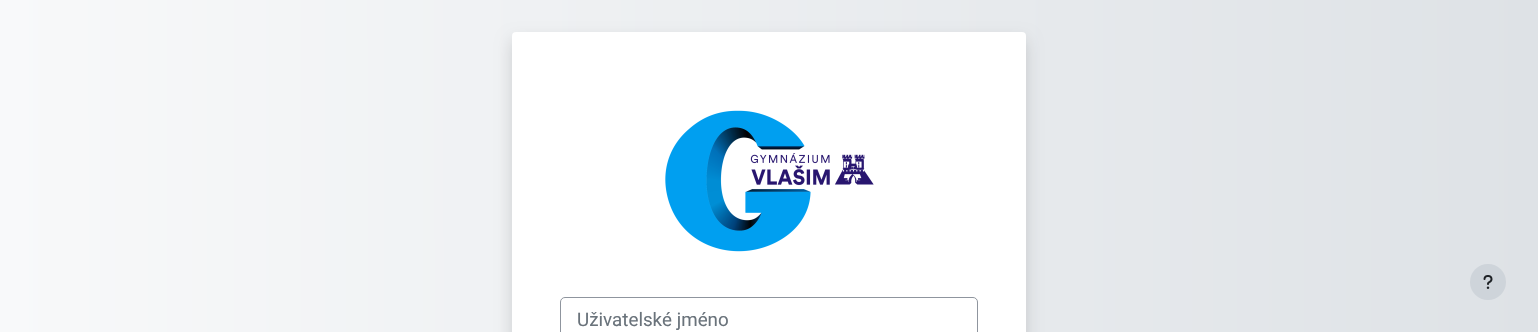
void draw(SkCanvas* canvas) {
	SkPaint fill;
	fill.setAntiAlias(true);
	auto makeFont = [&](const char* family, int weight, float size, bool italic = false) {
		SkFontStyle style(weight, SkFontStyle::kNormal_Width,
			italic ? SkFontStyle::kItalic_Slant : SkFontStyle::kUpright_Slant);
		SkFont result(fontMgr->matchFamilyStyle(family, style), size);
		result.setSubpixel(true);
		return result;
	};
	auto text = [&](const char* s, float x, float y, const SkFont& font) {
		canvas->drawString(s, x, y, font, fill);
	};
	auto box = [&](float l, float t, float r, float b) {
		canvas->drawRect(SkRect::MakeLTRB(l, t, r, b), fill);
	};
	auto roundBox = [&](float l, float t, float r, float b, float radius) {
		canvas->drawRoundRect(SkRect::MakeLTRB(l, t, r, b), radius, radius, fill);
	};
	auto picture = [&](const char* path, float l, float t, float r, float b) {
		auto image = SkImages::DeferredFromEncodedData(SkData::MakeFromFileName(path));
		canvas->drawImageRect(image, SkRect::MakeLTRB(l, t, r, b), SkSamplingOptions());
	};
	canvas->clear(0xFFFFFFFF);
	{
		const SkColor colors[] = {0xFFF8F9FA, 0xFFDEE2E6};
		const float stops[] = {0, 1};
		const SkPoint ends[] = {{0, 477}, {1538, 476}};
		fill.setShader(SkGradientShader::MakeLinear(ends, colors, stops, 2, SkTileMode::kClamp));
		fill.setAlpha(255);
	}
	box(0, 0, 1538, 332);
	fill.setShader(nullptr);
	fill.setColor(0xFFCED4DA);
	canvas->drawCircle(1488, 282, 18, fill);
	picture("image0.png", 1483, 275, 1493, 289);
	fill.setColor(0x26000000);
	fill.setMaskFilter(SkMaskFilter::MakeBlur(kNormal_SkBlurStyle, 8));
	canvas->drawRoundRect(SkRect::MakeLTRB(512, 40, 1026, 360), 4, 4, fill);
	fill.setMaskFilter(nullptr);
	fill.setColor(0xFFFFFFFF);
	roundBox(512, 32, 1026, 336, 4);
	picture("image1.png", 665, 110, 874, 252);
	fill.setStyle(SkPaint::kStroke_Style);
	fill.setStrokeWidth(1);
	fill.setColor(0xFF8F959E);
	canvas->drawRoundRect(SkRect::MakeLTRB(560.5f, 297.5f, 977.5f, 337.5f), 4.5f, 4.5f, fill);
	auto font1 = makeFont("Roboto", 400, 18.75f);
	fill.setStyle(SkPaint::kFill_Style);
	fill.setColor(0xFF6A737B);
	text("Uživatelské jméno", 577, 326, font1);
}
